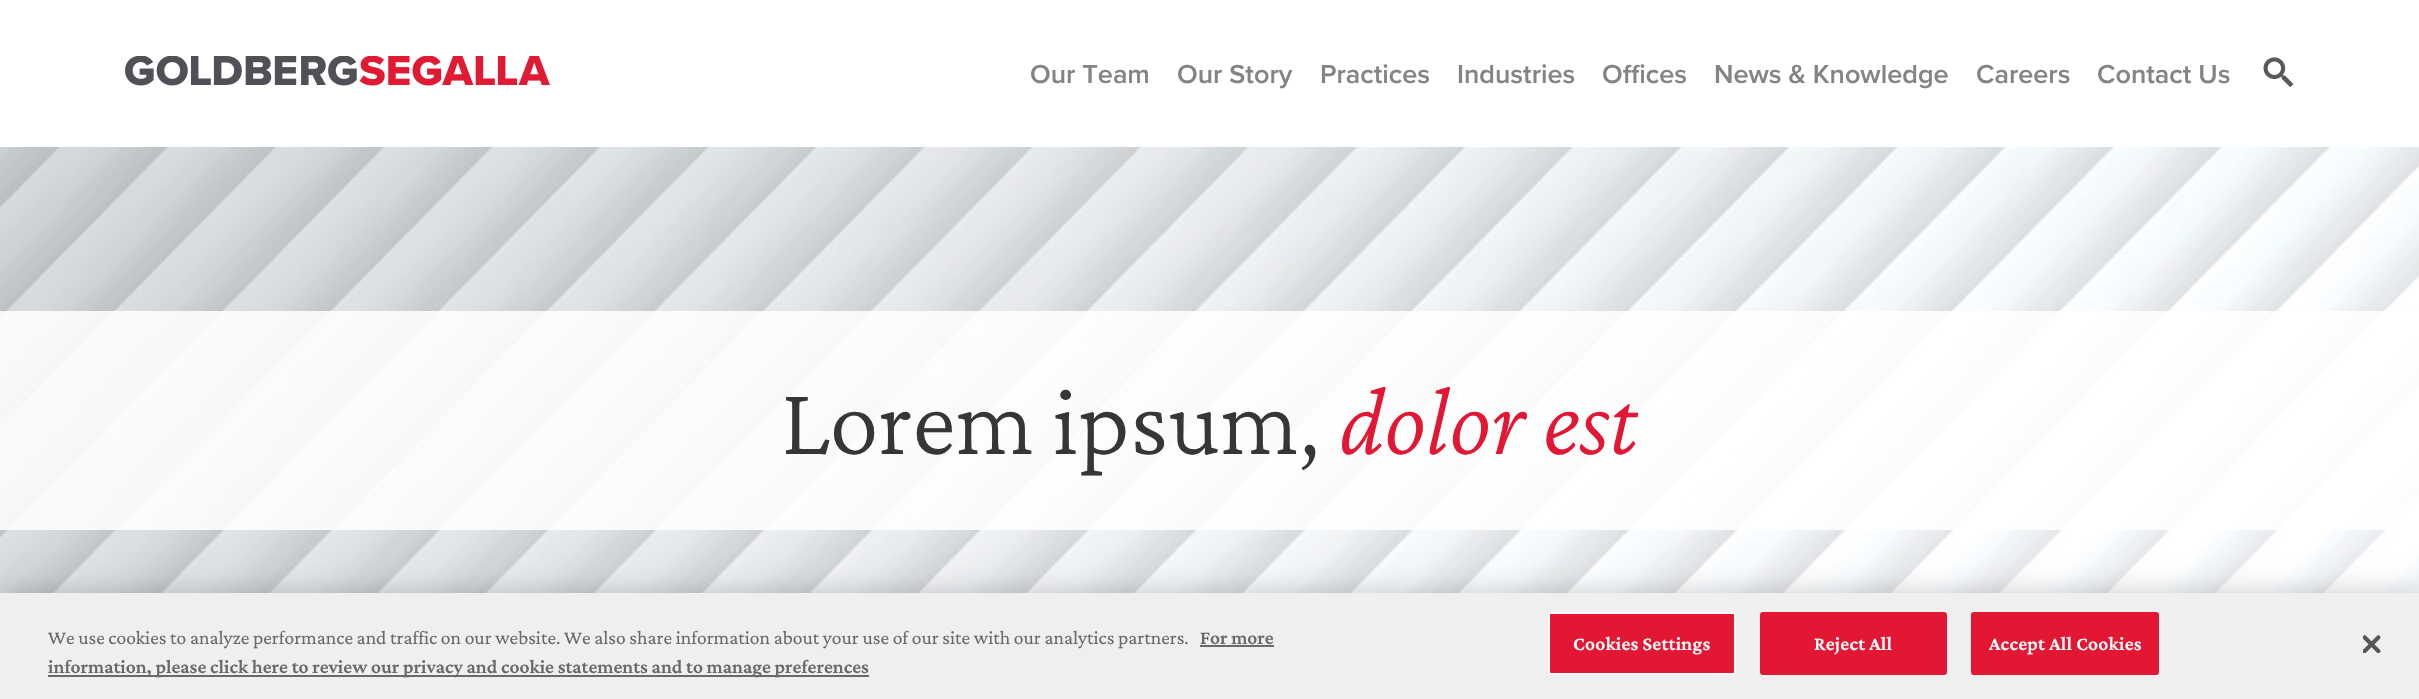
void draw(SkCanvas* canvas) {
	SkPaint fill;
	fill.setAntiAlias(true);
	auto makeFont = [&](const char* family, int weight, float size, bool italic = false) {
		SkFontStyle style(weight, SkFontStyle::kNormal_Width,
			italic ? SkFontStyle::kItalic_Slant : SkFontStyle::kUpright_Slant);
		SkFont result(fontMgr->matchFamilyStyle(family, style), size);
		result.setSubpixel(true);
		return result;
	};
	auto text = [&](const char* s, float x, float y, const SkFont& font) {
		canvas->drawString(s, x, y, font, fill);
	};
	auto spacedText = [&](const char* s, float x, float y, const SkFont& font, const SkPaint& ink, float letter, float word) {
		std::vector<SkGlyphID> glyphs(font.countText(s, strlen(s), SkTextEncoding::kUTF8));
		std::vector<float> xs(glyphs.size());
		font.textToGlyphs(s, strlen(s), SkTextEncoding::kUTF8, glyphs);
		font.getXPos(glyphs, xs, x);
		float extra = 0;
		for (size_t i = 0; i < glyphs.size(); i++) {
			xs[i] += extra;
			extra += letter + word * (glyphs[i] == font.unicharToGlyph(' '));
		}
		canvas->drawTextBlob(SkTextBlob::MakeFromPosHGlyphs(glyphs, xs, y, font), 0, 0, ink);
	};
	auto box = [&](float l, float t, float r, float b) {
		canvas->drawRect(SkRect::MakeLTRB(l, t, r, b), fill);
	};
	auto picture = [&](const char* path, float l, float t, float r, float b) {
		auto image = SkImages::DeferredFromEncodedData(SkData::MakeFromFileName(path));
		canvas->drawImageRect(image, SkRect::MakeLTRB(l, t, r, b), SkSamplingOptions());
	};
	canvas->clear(0xFFFFFFFF);
	picture("image0.png", 125, 56, 550, 86);
	picture("image1.png", 2263, 57, 2294, 88);
	picture("image2.png", 0, 147, 2419, 593);
	fill.setColor(0xD9FFFFFF);
	box(0, 311, 2419, 530);
	fill.setColor(0x33000000);
	fill.setMaskFilter(SkMaskFilter::MakeBlur(kNormal_SkBlurStyle, 13.5f));
	canvas->drawRect(SkRect::MakeLTRB(0, 593, 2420, 699), fill);
	fill.setMaskFilter(nullptr);
	fill.setColor(0xFFEFEFEF);
	box(0, 593, 2419, 699);
	fill.setColor(0xFF696969);
	box(1200, 645, 1274, 647);
	box(48, 675, 869, 677);
	fill.setColor(0xFFE11733);
	canvas->drawRoundRect(SkRect::MakeLTRB(1549, 613, 1735, 674), 2, 2, fill);
	fill.setStyle(SkPaint::kStroke_Style);
	fill.setStrokeWidth(2);
	fill.setColor(0xFFFFFFFF);
	canvas->drawRoundRect(SkRect::MakeLTRB(1549, 613, 1735, 674), 2, 2, fill);
	fill.setStyle(SkPaint::kFill_Style);
	fill.setColor(0xFFE11733);
	canvas->drawRoundRect(SkRect::MakeLTRB(1761, 613, 1946, 674), 2, 2, fill);
	fill.setStyle(SkPaint::kStroke_Style);
	canvas->drawRoundRect(SkRect::MakeLTRB(1761, 613, 1946, 674), 2, 2, fill);
	fill.setStyle(SkPaint::kFill_Style);
	canvas->drawRoundRect(SkRect::MakeLTRB(1972, 613, 2158, 674), 2, 2, fill);
	fill.setStyle(SkPaint::kStroke_Style);
	canvas->drawRoundRect(SkRect::MakeLTRB(1972, 613, 2158, 674), 2, 2, fill);
	picture("image3.png", 2363, 635, 2381, 653);
	auto font1 = makeFont("Proxima Nova", 600, 27);
	fill.setStyle(SkPaint::kFill_Style);
	fill.setColor(0xFF848484);
	text("Our Team", 1030, 83, font1);
	text("Our Story", 1177, 83, font1);
	text("Practices", 1320, 83, font1);
	text("Industries", 1457, 83, font1);
	text("Offices", 1602, 83, font1);
	text("News & Knowledge", 1714, 83, font1);
	text("Careers", 1976, 83, font1);
	text("Contact Us", 2097, 83, font1);
	auto font2 = makeFont("Crimson Pro", 300, 99.5f);
	fill.setColor(0xFF363636);
	text("Lorem ipsum,", 781, 454, font2);
	auto font3 = makeFont("Crimson Pro", 300, 99.5f, true);
	fill.setColor(0xFFE11733);
	text("dolor est", 1339, 454, font3);
	auto font4 = makeFont("Crimson Pro", 400, 19.5f);
	fill.setColor(0xFF696969);
	text("We use cookies to analyze performance and traffic on our website. We also share information about your use of our site with our analytics partners.", 48, 644, font4);
	auto font5 = makeFont("Crimson Pro", 600, 19.5f);
	text("For more", 1200, 644, font5);
	text("information, please click here to review our privacy and cookie statements and to manage preferences", 48, 673, font5);
	fill.setColor(0xFFFFFFFF);
	spacedText("Cookies Settings", 1573, 650, font5, fill, 0.25f, 0);
	spacedText("Reject All", 1814, 650, font5, fill, 0.25f, 0);
	spacedText("Accept All Cookies", 1989, 650, font5, fill, 0.25f, 0);
}
